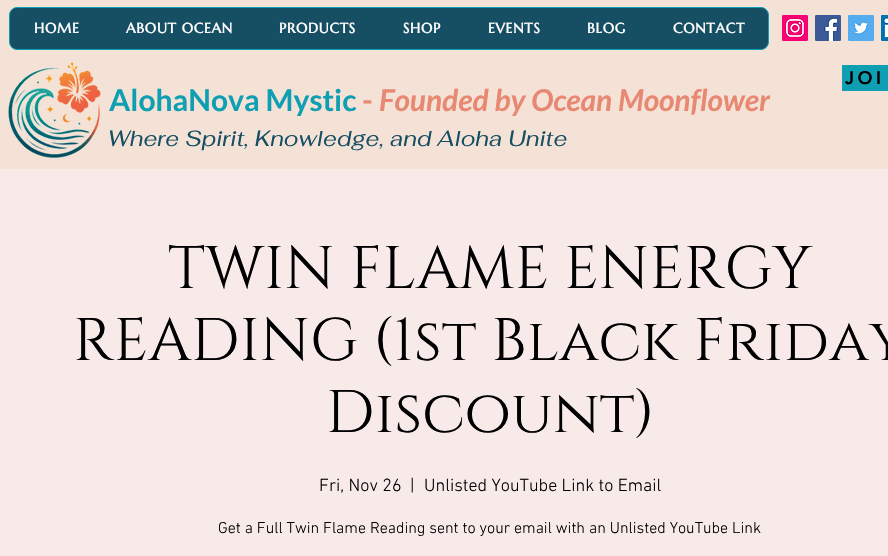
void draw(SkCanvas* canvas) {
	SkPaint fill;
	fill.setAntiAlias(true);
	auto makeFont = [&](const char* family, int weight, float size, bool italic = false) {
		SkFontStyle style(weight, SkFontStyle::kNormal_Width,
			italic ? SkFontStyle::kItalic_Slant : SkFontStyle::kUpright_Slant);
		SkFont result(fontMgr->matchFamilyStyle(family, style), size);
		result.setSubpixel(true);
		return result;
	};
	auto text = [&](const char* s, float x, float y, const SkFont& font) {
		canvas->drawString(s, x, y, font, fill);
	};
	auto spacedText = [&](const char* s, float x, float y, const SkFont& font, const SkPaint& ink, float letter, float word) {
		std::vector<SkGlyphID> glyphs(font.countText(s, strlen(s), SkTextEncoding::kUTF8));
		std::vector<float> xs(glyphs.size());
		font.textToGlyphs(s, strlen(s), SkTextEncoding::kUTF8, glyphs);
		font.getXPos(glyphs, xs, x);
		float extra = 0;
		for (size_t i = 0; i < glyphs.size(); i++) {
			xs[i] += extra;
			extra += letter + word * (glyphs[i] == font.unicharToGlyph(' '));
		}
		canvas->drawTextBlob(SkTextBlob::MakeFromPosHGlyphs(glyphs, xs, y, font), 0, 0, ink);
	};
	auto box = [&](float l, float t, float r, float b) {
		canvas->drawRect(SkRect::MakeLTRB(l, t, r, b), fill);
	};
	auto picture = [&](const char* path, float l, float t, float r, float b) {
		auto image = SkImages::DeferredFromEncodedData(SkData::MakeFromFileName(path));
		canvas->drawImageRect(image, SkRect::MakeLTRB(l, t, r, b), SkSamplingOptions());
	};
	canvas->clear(0xFFF5E2D7);
	fill.setColor(0xFF164E63);
	canvas->drawRoundRect(SkRect::MakeLTRB(9.5f, 7.5f, 768.5f, 49.5f), 7.5f, 7.5f, fill);
	fill.setStyle(SkPaint::kStroke_Style);
	fill.setStrokeWidth(1);
	fill.setColor(0xFF0F9FB3);
	canvas->drawRoundRect(SkRect::MakeLTRB(9.5f, 7.5f, 768.5f, 49.5f), 7.5f, 7.5f, fill);
	picture("image0.png", 782, 15, 808, 41);
	picture("image1.png", 815, 15, 841, 41);
	picture("image2.png", 848, 15, 874, 41);
	picture("image3.png", 881, 15, 888, 41);
	picture("image4.png", 8, 62, 101, 158);
	fill.setStyle(SkPaint::kFill_Style);
	box(842, 65, 888, 91);
	fill.setColor(0xFFF9EAEA);
	box(0, 169, 888, 556);
	auto font1 = makeFont("Marcellus", 700, 14);
	fill.setColor(0xFFFFFFFF);
	spacedText("HOME", 34, 33, font1, fill, 0.75f, 0);
	spacedText("ABOUT OCEAN", 126, 33, font1, fill, 0.75f, 0);
	spacedText("PRODUCTS", 279, 33, font1, fill, 0.75f, 0);
	spacedText("SHOP", 403, 33, font1, fill, 0.75f, 0);
	spacedText("EVENTS", 488, 33, font1, fill, 0.75f, 0);
	spacedText("BLOG", 587, 33, font1, fill, 0.75f, 0);
	spacedText("CONTACT", 673, 33, font1, fill, 0.75f, 0);
	auto font2 = makeFont("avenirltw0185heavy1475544", 900, 18);
	fill.setColor(0xFF000000);
	spacedText("JOI", 845, 84, font2, fill, 3.5f, 0);
	auto font3 = makeFont("Lato", 700, 30);
	fill.setColor(0xFF0F9FB3);
	text("AlohaNova Mystic", 109, 111, font3);
	fill.setColor(0xFFE88873);
	text("-", 362, 111, font3);
	auto font4 = makeFont("Lato", 700, 30, true);
	text("Founded by Ocean Moonflower", 379, 111, font4);
	auto font5 = makeFont("Fahkwang", 400, 22, true);
	fill.setColor(0xFF164E63);
	text("Where Spirit, Knowledge, and Aloha Unite", 108, 146, font5);
	auto font6 = makeFont("Cinzel", 400, 60);
	fill.setColor(0xFF000000);
	text("TWIN FLAME ENERGY", 168, 288, font6);
	text("READING (1st Black Friday", 73, 360, font6);
	text("Discount)", 326, 432, font6);
	auto font7 = makeFont("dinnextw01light", 300, 18);
	text("Fri, Nov 26", 319, 491, font7);
	text("|", 410, 491, font7);
	text("Unlisted YouTube Link to Email", 424, 491, font7);
	auto font8 = makeFont("dinnextw01light", 300, 16);
	text("Get a Full Twin Flame Reading sent to your email with an Unlisted YouTube Link", 218, 533, font8);
}
